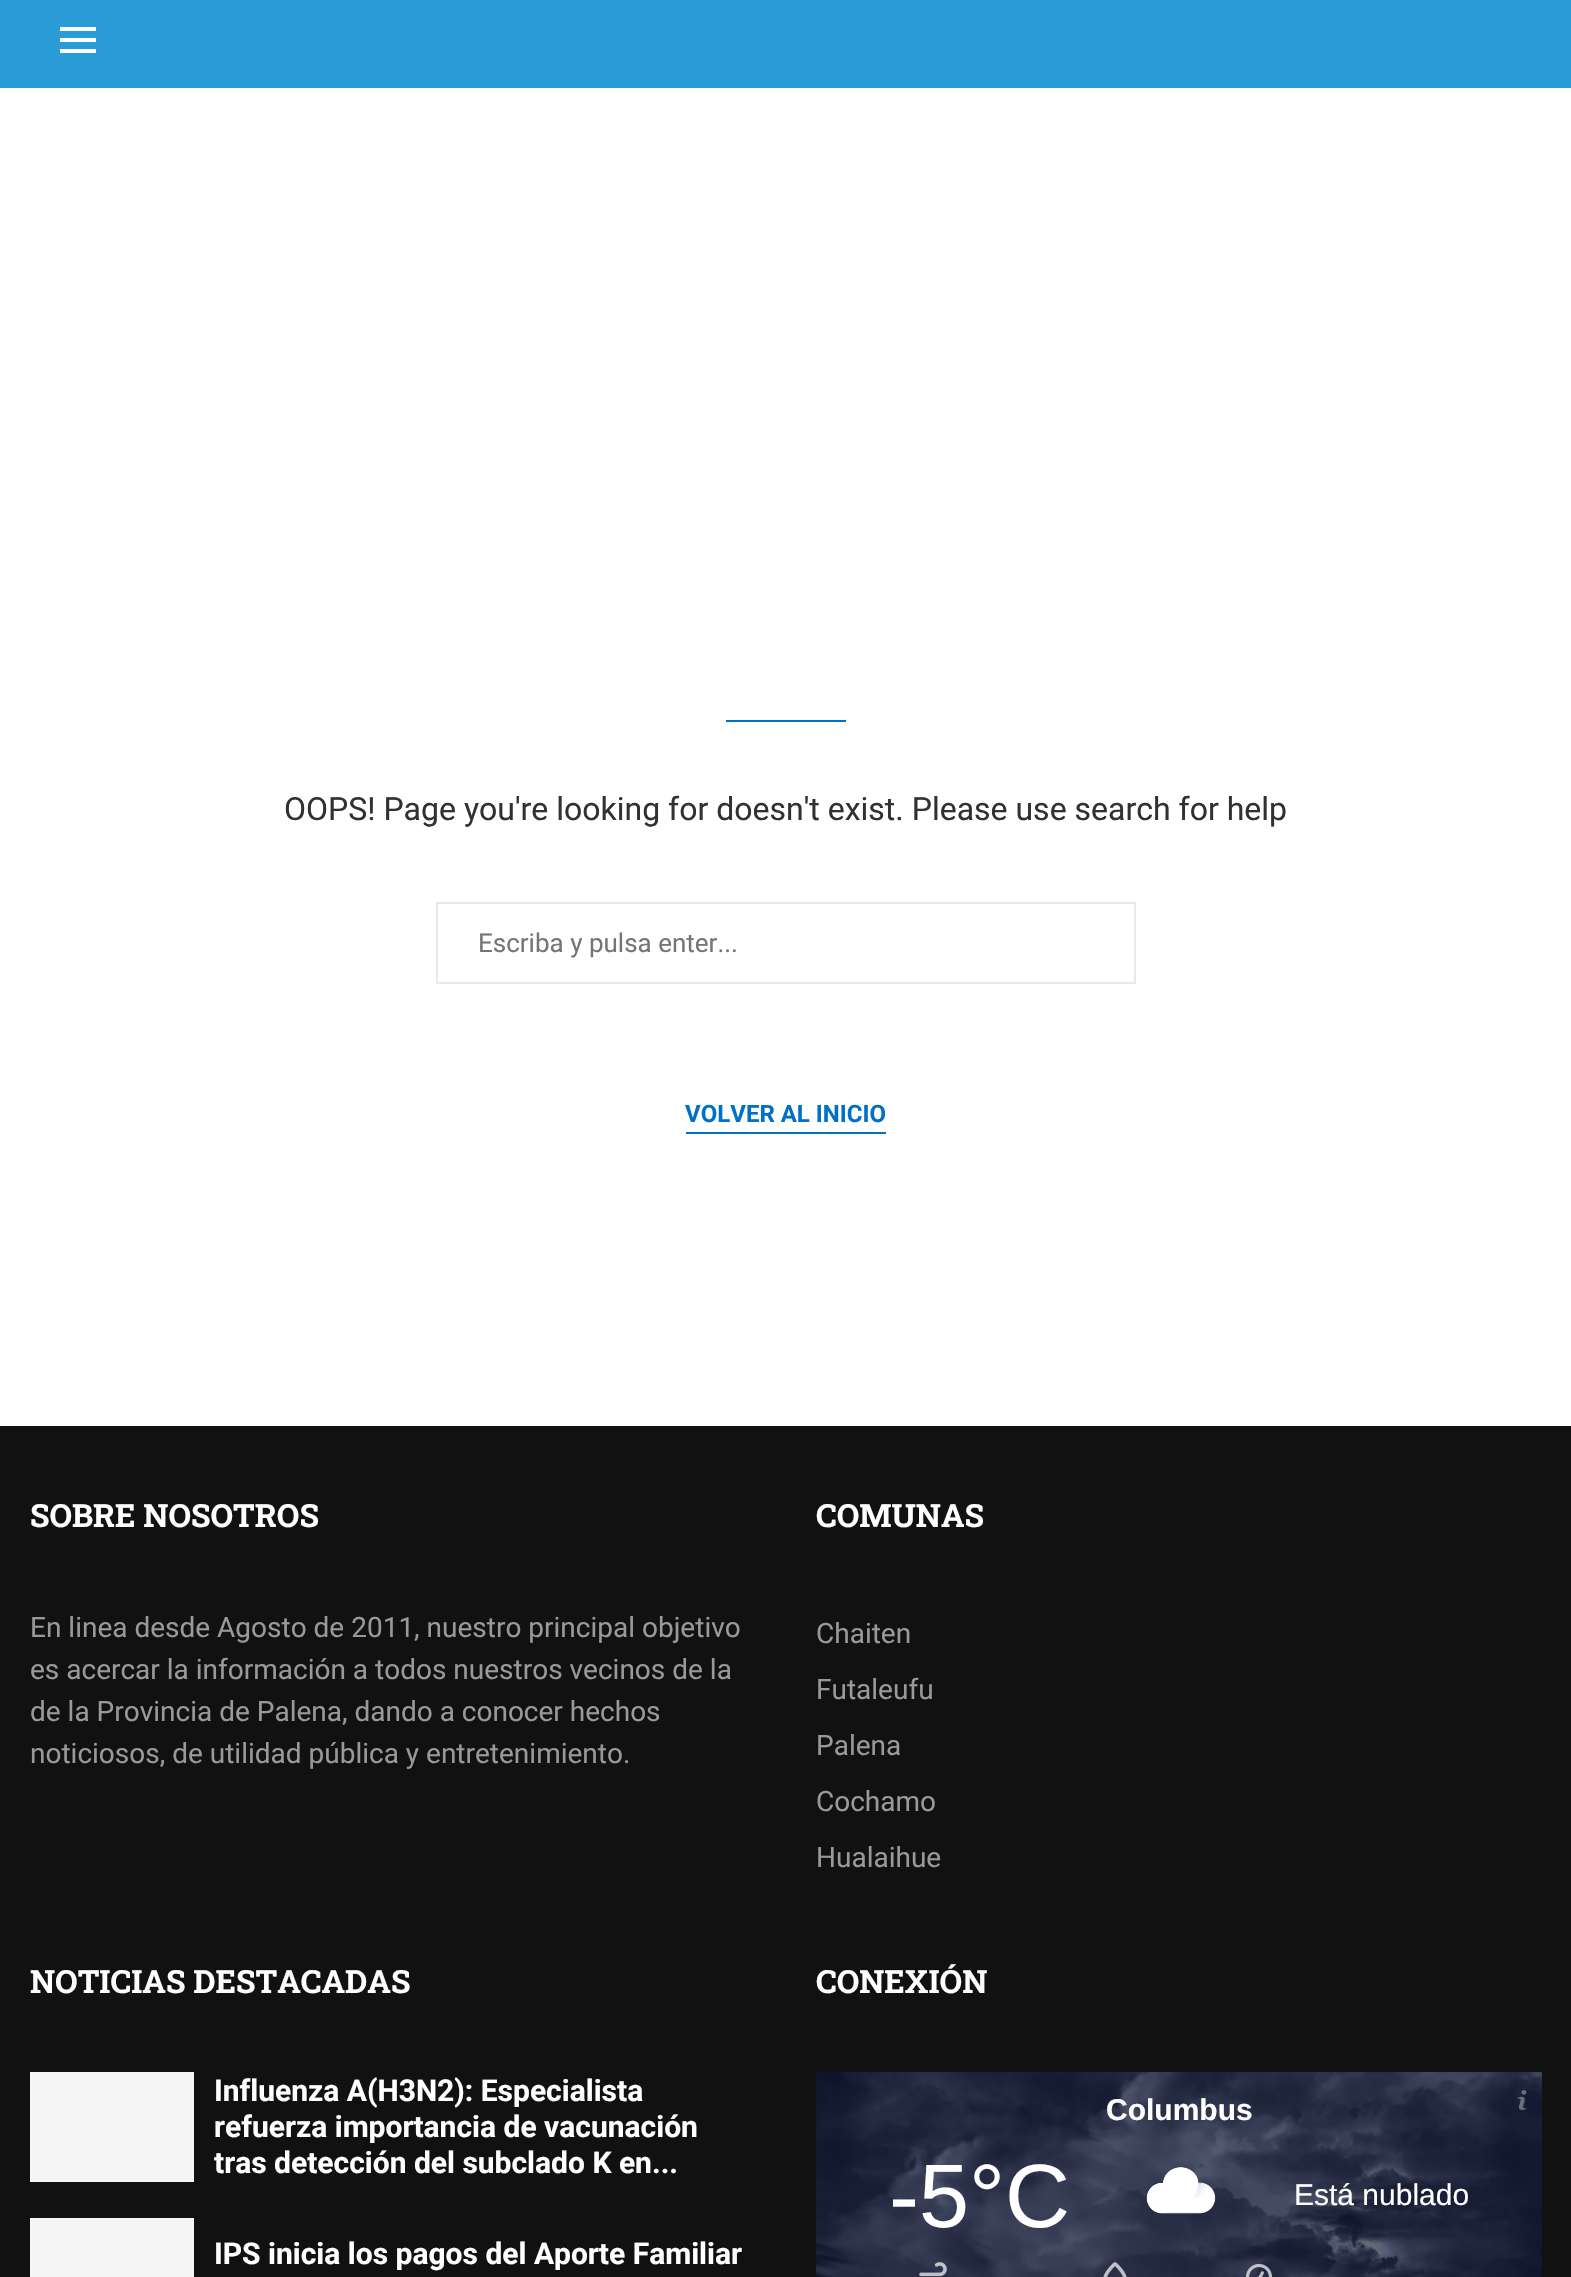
void draw(SkCanvas* canvas) {
	SkPaint fill;
	fill.setAntiAlias(true);
	auto makeFont = [&](const char* family, int weight, float size, bool italic = false) {
		SkFontStyle style(weight, SkFontStyle::kNormal_Width,
			italic ? SkFontStyle::kItalic_Slant : SkFontStyle::kUpright_Slant);
		SkFont result(fontMgr->matchFamilyStyle(family, style), size);
		result.setSubpixel(true);
		return result;
	};
	auto text = [&](const char* s, float x, float y, const SkFont& font) {
		canvas->drawString(s, x, y, font, fill);
	};
	auto box = [&](float l, float t, float r, float b) {
		canvas->drawRect(SkRect::MakeLTRB(l, t, r, b), fill);
	};
	auto picture = [&](const char* path, float l, float t, float r, float b) {
		auto image = SkImages::DeferredFromEncodedData(SkData::MakeFromFileName(path));
		canvas->drawImageRect(image, SkRect::MakeLTRB(l, t, r, b), SkSamplingOptions());
	};
	canvas->clear(0xFFFFFFFF);
	fill.setColor(0xFF299BD7);
	box(0, 0, 1571, 88);
	fill.setColor(0xFFFFFFFF);
	box(60, 27, 96, 31);
	box(60, 38, 96, 42);
	box(60, 49, 96, 53);
	fill.setColor(0xFF0071C7);
	box(726, 720, 846, 722);
	fill.setStyle(SkPaint::kStroke_Style);
	fill.setStrokeWidth(2);
	fill.setColor(0xFFE9E9E9);
	canvas->drawRect(SkRect::MakeLTRB(437, 903, 1135, 983), fill);
	fill.setStyle(SkPaint::kFill_Style);
	fill.setColor(0xFF0071C7);
	box(686, 1132, 886, 1134);
	fill.setColor(0xFF111111);
	box(0, 1426, 1571, 2277);
	fill.setColor(0xFFF5F5F5);
	box(30, 2072, 194, 2182);
	box(30, 2218, 194, 2277);
	picture("image0.png", 816, 2072, 1542, 2277);
	picture("image1.png", 1517, 2090, 1527, 2110);
	picture("image2.png", 1146, 2167, 1216, 2214);
	picture("image3.png", 919, 2262, 947, 2277);
	picture("image4.png", 1103, 2262, 1127, 2277);
	picture("image5.png", 1245, 2263, 1272, 2277);
	auto font1 = makeFont("Roboto", 400, 32);
	fill.setColor(0xFF313131);
	text("OOPS! Page you're looking for doesn't exist. Please use search for help", 284, 820, font1);
	auto font2 = makeFont("Roboto", 400, 26);
	fill.setColor(0xFF757575);
	text("Escriba y pulsa enter...", 478, 952, font2);
	auto font3 = makeFont("Roboto", 700, 24);
	fill.setColor(0xFF0071C7);
	text("VOLVER AL INICIO", 685, 1122, font3);
	auto font4 = makeFont("Roboto Slab", 700, 32);
	fill.setColor(0xFFFFFFFF);
	text("SOBRE NOSOTROS", 30, 1527, font4);
	auto font5 = makeFont("Roboto", 400, 28);
	fill.setColor(0xFF999999);
	text("En linea desde Agosto de 2011, nuestro principal objetivo", 30, 1637, font5);
	text("es acercar la información a todos nuestros vecinos de la", 30, 1679, font5);
	text("de la Provincia de Palena, dando a conocer hechos", 30, 1721, font5);
	text("noticiosos, de utilidad pública y entretenimiento.", 30, 1763, font5);
	fill.setColor(0xFFFFFFFF);
	text("COMUNAS", 816, 1527, font4);
	fill.setColor(0xFF999999);
	text("Chaiten", 816, 1643, font5);
	text("Futaleufu", 816, 1699, font5);
	text("Palena", 816, 1755, font5);
	text("Cochamo", 816, 1811, font5);
	text("Hualaihue", 816, 1867, font5);
	fill.setColor(0xFFFFFFFF);
	text("NOTICIAS DESTACADAS", 30, 1993, font4);
	auto font6 = makeFont("Roboto", 700, 30);
	text("Influenza A(H3N2): Especialista", 214, 2101, font6);
	text("refuerza importancia de vacunación", 214, 2137, font6);
	text("tras detección del subclado K en...", 214, 2173, font6);
	text("IPS inicia los pagos del Aporte Familiar", 214, 2264, font6);
	text("CONEXIÓN", 816, 1993, font4);
	auto font7 = makeFont("Liberation Sans", 700, 30);
	text("Columbus", 1106, 2120, font7);
	auto font8 = makeFont("Liberation Sans", 400, 90);
	text("-5°C", 889, 2227, font8);
	auto font9 = makeFont("Liberation Sans", 400, 30);
	text("Está nublado", 1294, 2205, font9);
}
